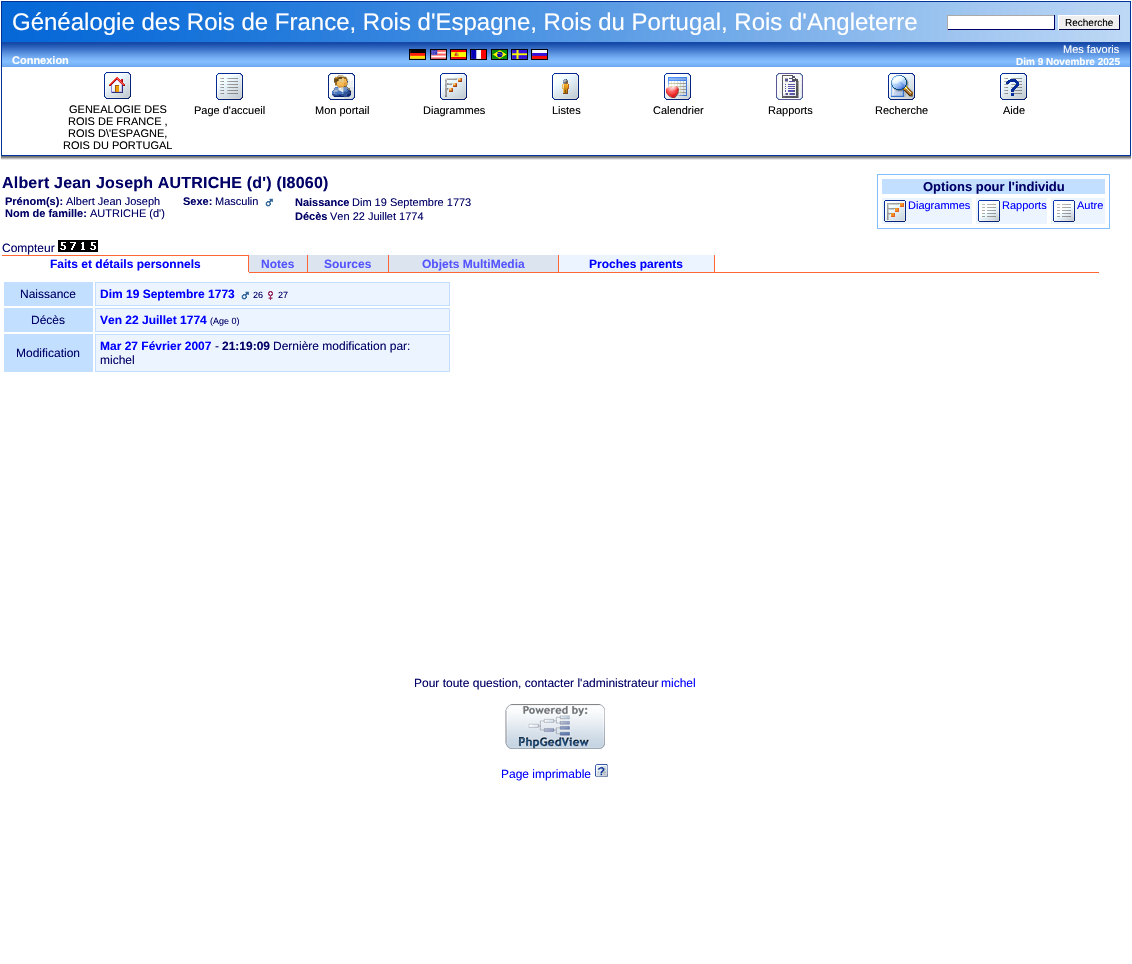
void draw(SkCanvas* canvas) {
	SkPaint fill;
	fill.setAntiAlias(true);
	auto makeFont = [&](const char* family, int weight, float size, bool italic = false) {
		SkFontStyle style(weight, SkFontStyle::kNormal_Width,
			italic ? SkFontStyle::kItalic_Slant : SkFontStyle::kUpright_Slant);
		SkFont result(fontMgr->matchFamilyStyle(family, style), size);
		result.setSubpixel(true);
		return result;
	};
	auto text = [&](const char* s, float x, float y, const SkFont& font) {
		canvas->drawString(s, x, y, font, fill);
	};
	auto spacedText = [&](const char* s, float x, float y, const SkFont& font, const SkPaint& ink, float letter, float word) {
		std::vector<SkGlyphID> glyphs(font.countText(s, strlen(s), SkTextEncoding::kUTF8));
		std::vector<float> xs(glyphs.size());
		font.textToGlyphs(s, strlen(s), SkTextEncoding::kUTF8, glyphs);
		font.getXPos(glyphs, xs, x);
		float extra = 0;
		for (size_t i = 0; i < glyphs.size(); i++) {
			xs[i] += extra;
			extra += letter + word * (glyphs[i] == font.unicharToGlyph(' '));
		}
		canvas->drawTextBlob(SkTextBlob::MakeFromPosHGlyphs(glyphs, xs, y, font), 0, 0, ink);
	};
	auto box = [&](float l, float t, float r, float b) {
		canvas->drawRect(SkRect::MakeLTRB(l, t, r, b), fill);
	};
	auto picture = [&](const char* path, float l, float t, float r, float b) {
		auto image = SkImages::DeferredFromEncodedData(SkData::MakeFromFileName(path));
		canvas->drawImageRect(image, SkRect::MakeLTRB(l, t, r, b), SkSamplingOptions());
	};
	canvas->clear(0xFFFFFFFF);
	fill.setColor(0xFF003399);
	box(1, 1, 1131, 156);
	picture("image0.png", 2, 2, 1130, 42);
	fill.setColor(0xFFFFFFFF);
	box(948, 16, 1054, 29);
	fill.setColor(0xFFAAAAAA);
	box(947, 15, 1055, 16);
	fill.setColor(0xFF000066);
	box(1054, 15, 1055, 30);
	box(947, 29, 1055, 30);
	fill.setColor(0xFFAAAAAA);
	box(947, 15, 948, 30);
	fill.setColor(0xFFEFEFEF);
	box(1059, 16, 1119, 29);
	fill.setColor(0xFFFFFFFF);
	box(1058, 15, 1120, 16);
	fill.setColor(0xFF000044);
	box(1119, 15, 1120, 30);
	box(1058, 29, 1120, 30);
	fill.setColor(0xFFFFFFFF);
	box(1058, 15, 1059, 30);
	picture("image1.png", 2, 42, 1130, 67);
	fill.setStyle(SkPaint::kStroke_Style);
	fill.setStrokeWidth(1);
	fill.setColor(0xFF000000);
	canvas->drawRect(SkRect::MakeLTRB(409.5f, 49.5f, 425.5f, 59.5f), fill);
	canvas->drawRect(SkRect::MakeLTRB(430.5f, 49.5f, 446.5f, 59.5f), fill);
	canvas->drawRect(SkRect::MakeLTRB(450.5f, 49.5f, 466.5f, 59.5f), fill);
	canvas->drawRect(SkRect::MakeLTRB(470.5f, 49.5f, 486.5f, 59.5f), fill);
	canvas->drawRect(SkRect::MakeLTRB(491.5f, 49.5f, 507.5f, 59.5f), fill);
	canvas->drawRect(SkRect::MakeLTRB(511.5f, 49.5f, 527.5f, 59.5f), fill);
	canvas->drawRect(SkRect::MakeLTRB(531.5f, 49.5f, 547.5f, 59.5f), fill);
	picture("image2.png", 410, 50, 425, 59);
	picture("image3.png", 431, 50, 446, 59);
	picture("image4.png", 451, 50, 466, 59);
	picture("image5.png", 471, 50, 486, 59);
	picture("image6.png", 492, 50, 507, 59);
	picture("image7.png", 512, 50, 527, 59);
	picture("image8.png", 532, 50, 547, 59);
	fill.setStyle(SkPaint::kFill_Style);
	fill.setColor(0xFFFFFFFF);
	box(2, 67, 1130, 155);
	picture("image9.png", 104, 72, 131, 99);
	picture("image10.png", 216, 73, 243, 100);
	picture("image11.png", 328, 73, 355, 100);
	picture("image12.png", 440, 73, 467, 100);
	picture("image13.png", 552, 73, 579, 100);
	picture("image14.png", 664, 73, 691, 100);
	picture("image15.png", 776, 73, 803, 100);
	picture("image16.png", 888, 73, 915, 100);
	picture("image17.png", 1000, 73, 1027, 100);
	picture("image18.png", 1, 156, 1131, 160);
	picture("image19.png", 265, 198, 273, 207);
	picture("image20.png", 58, 240, 68, 252);
	picture("image21.png", 68, 240, 78, 252);
	picture("image22.png", 78, 240, 88, 252);
	picture("image20.png", 88, 240, 98, 252);
	fill.setStyle(SkPaint::kStroke_Style);
	fill.setColor(0xFF84BEFF);
	canvas->drawRect(SkRect::MakeLTRB(877.5f, 174.5f, 1109.5f, 228.5f), fill);
	fill.setStyle(SkPaint::kFill_Style);
	fill.setColor(0xFFC3DFFF);
	box(882, 179, 1105, 194);
	fill.setColor(0xFFECF5FF);
	box(882, 198, 972, 224);
	picture("image23.png", 884, 200, 906, 222);
	box(976, 198, 1047, 224);
	picture("image24.png", 978, 200, 1000, 222);
	box(1051, 198, 1105, 224);
	picture("image24.png", 1053, 200, 1075, 222);
	fill.setColor(0xFFFF6633);
	box(2, 255, 249, 256);
	box(248, 255, 249, 272);
	fill.setColor(0xFFDCE5EF);
	box(249, 255, 307, 272);
	fill.setColor(0xFFFF6633);
	box(307, 255, 308, 272);
	fill.setColor(0xFFDCE5EF);
	box(308, 255, 388, 272);
	fill.setColor(0xFFFF6633);
	box(388, 255, 389, 272);
	fill.setColor(0xFFDCE5EF);
	box(389, 255, 558, 272);
	fill.setColor(0xFFFF6633);
	box(558, 255, 559, 272);
	fill.setColor(0xFFECF5FF);
	box(559, 255, 714, 272);
	fill.setColor(0xFFFF6633);
	box(714, 255, 715, 272);
	box(249, 272, 1099, 273);
	fill.setColor(0xFFC3DFFF);
	box(4, 282, 93, 306);
	fill.setColor(0xFFECF5FF);
	canvas->drawRect(SkRect::MakeLTRB(95.5f, 282.5f, 449.5f, 305.5f), fill);
	fill.setStyle(SkPaint::kStroke_Style);
	fill.setColor(0xFFC3DFFF);
	canvas->drawRect(SkRect::MakeLTRB(95.5f, 282.5f, 449.5f, 305.5f), fill);
	picture("image25.png", 241, 291, 249, 300);
	picture("image26.png", 268, 291, 273, 300);
	fill.setStyle(SkPaint::kFill_Style);
	box(4, 308, 93, 332);
	fill.setColor(0xFFECF5FF);
	canvas->drawRect(SkRect::MakeLTRB(95.5f, 308.5f, 449.5f, 331.5f), fill);
	fill.setStyle(SkPaint::kStroke_Style);
	fill.setColor(0xFFC3DFFF);
	canvas->drawRect(SkRect::MakeLTRB(95.5f, 308.5f, 449.5f, 331.5f), fill);
	fill.setStyle(SkPaint::kFill_Style);
	box(4, 334, 93, 372);
	fill.setColor(0xFFECF5FF);
	canvas->drawRect(SkRect::MakeLTRB(95.5f, 334.5f, 449.5f, 371.5f), fill);
	fill.setStyle(SkPaint::kStroke_Style);
	fill.setColor(0xFFC3DFFF);
	canvas->drawRect(SkRect::MakeLTRB(95.5f, 334.5f, 449.5f, 371.5f), fill);
	picture("image27.png", 505, 704, 605, 749);
	picture("image28.png", 595, 764, 608, 777);
	auto font1 = makeFont("Liberation Sans", 400, 24);
	fill.setStyle(SkPaint::kFill_Style);
	fill.setColor(0xFFFFFFFF);
	text("Généalogie des Rois de France, Rois d'Espagne, Rois du Portugal, Rois d'Angleterre", 12, 30, font1);
	auto font2 = makeFont("Liberation Sans", 400, 10);
	fill.setColor(0xFF000000);
	text("Recherche", 1065, 26, font2);
	auto font3 = makeFont("Liberation Sans", 700, 11);
	fill.setColor(0xFFFFFFFF);
	text("Connexion", 12, 64, font3);
	auto font4 = makeFont("Liberation Sans", 400, 11);
	text("Mes favoris", 1063, 53, font4);
	auto font5 = makeFont("Liberation Sans", 700, 10);
	text("Dim 9 Novembre 2025", 1016, 65, font5);
	fill.setColor(0xFF000000);
	text("GENEALOGIE DES", 69, 113, font4);
	text("ROIS DE FRANCE ,", 68, 125, font4);
	text("ROIS D\\'ESPAGNE,", 68, 137, font4);
	text("ROIS DU PORTUGAL", 63, 149, font4);
	text("Page d'accueil", 194, 114, font4);
	text("Mon portail", 315, 114, font4);
	text("Diagrammes", 423, 114, font4);
	text("Listes", 552, 114, font4);
	text("Calendrier", 653, 114, font4);
	text("Rapports", 768, 114, font4);
	text("Recherche", 875, 114, font4);
	text("Aide", 1003, 114, font4);
	auto font6 = makeFont("Liberation Sans", 700, 16);
	fill.setColor(0xFF000066);
	spacedText("Albert Jean Joseph AUTRICHE (d') (I8060)", 2, 188, font6, fill, 0.2f, 0);
	text("Prénom(s):", 5, 205, font3);
	text("Albert Jean Joseph", 66, 205, font4);
	text("Nom de famille:", 5, 217, font3);
	text("AUTRICHE (d')", 90, 217, font4);
	text("Sexe:", 183, 205, font3);
	text("Masculin", 215, 205, font4);
	text("Naissance", 295, 206, font3);
	text("Dim 19 Septembre 1773", 352, 206, font4);
	text("Décès", 295, 220, font3);
	text("Ven 22 Juillet 1774", 330, 220, font4);
	auto font7 = makeFont("Liberation Sans", 400, 12);
	text("Compteur", 2, 252, font7);
	auto font8 = makeFont("Liberation Sans", 700, 13);
	text("Options pour l'individu", 923, 191, font8);
	fill.setColor(0xFF0000FF);
	text("Diagrammes", 908, 209, font4);
	text("Rapports", 1002, 209, font4);
	text("Autre", 1077, 209, font4);
	auto font9 = makeFont("Liberation Sans", 700, 12);
	text("Faits et détails personnels", 50, 268, font9);
	fill.setColor(0xFF5555FF);
	text("Notes", 261, 268, font9);
	text("Sources", 324, 268, font9);
	text("Objets MultiMedia", 422, 268, font9);
	fill.setColor(0xFF0000FF);
	text("Proches parents", 589, 268, font9);
	fill.setColor(0xFF000066);
	text("Naissance", 20, 298, font7);
	fill.setColor(0xFF0000FF);
	text("Dim 19 Septembre 1773", 100, 298, font9);
	auto font10 = makeFont("Liberation Sans", 400, 9);
	fill.setColor(0xFF000066);
	text("26", 253, 298, font10);
	text("27", 278, 298, font10);
	text("Décès", 31, 324, font7);
	fill.setColor(0xFF0000FF);
	text("Ven 22 Juillet 1774", 100, 324, font9);
	fill.setColor(0xFF000066);
	text("(Age 0)", 210, 324, font10);
	text("Modification", 16, 357, font7);
	fill.setColor(0xFF0000FF);
	text("Mar 27 Février 2007", 100, 350, font9);
	fill.setColor(0xFF000066);
	text("-", 215, 350, font7);
	text("21:19:09", 222, 350, font9);
	text("Dernière modification par:", 273, 350, font7);
	text("michel", 100, 364, font7);
	text("Pour toute question, contacter l'administrateur", 414, 687, font7);
	fill.setColor(0xFF0000FF);
	text("michel", 661, 687, font7);
	text("Page imprimable", 501, 778, font7);
}
